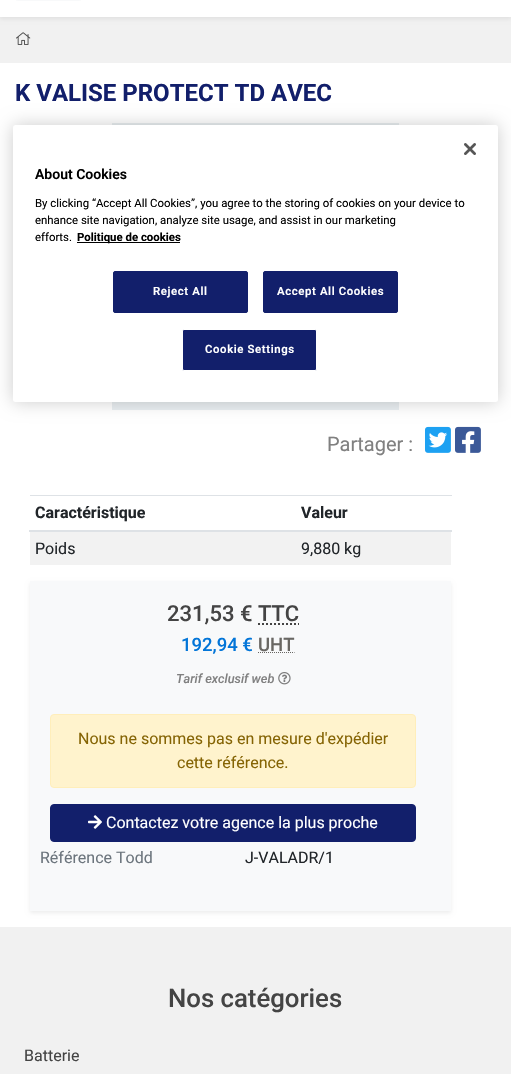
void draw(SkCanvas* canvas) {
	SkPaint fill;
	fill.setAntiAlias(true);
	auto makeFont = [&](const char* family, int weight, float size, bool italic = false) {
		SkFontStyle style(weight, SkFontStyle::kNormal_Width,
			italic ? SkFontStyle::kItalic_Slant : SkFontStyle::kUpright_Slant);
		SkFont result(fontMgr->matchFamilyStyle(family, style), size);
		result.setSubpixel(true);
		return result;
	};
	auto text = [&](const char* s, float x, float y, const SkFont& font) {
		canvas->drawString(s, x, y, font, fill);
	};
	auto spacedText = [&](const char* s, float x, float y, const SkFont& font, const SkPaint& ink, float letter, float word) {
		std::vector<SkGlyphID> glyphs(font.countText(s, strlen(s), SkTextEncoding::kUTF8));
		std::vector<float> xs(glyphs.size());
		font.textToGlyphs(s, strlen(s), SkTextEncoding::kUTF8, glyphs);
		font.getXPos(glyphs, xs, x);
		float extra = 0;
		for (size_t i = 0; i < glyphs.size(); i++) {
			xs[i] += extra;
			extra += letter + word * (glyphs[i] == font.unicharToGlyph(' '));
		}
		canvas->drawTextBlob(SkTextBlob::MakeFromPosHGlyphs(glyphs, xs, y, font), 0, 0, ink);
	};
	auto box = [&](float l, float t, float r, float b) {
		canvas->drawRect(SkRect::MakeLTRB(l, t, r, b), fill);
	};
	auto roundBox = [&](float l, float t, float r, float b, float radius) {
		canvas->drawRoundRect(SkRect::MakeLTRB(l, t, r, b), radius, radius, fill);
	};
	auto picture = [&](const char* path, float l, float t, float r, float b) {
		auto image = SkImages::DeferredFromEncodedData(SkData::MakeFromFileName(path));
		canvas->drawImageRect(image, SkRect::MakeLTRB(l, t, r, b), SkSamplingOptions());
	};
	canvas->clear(0xFFF1F1F1);
	fill.setColor(0x12000000);
	fill.setMaskFilter(SkMaskFilter::MakeBlur(kNormal_SkBlurStyle, 2));
	canvas->drawRect(SkRect::MakeLTRB(0, -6, 511, 19), fill);
	fill.setMaskFilter(nullptr);
	fill.setColor(0xFFFFFFFF);
	box(0, 0, 511, 17);
	fill.setStyle(SkPaint::kStroke_Style);
	fill.setStrokeWidth(1);
	fill.setColor(0xFFF8F9FA);
	canvas->drawRoundRect(SkRect::MakeLTRB(15.5f, -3.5f, 81.5f, 0.5f), 2.5f, 2.5f, fill);
	picture("image0.png", 16, 32, 31, 45);
	fill.setStyle(SkPaint::kFill_Style);
	fill.setColor(0xFFFFFFFF);
	box(0, 63, 511, 927);
	picture("image1.png", 112, 123, 399, 410);
	picture("image2.png", 425, 426, 451, 453);
	picture("image3.png", 455, 426, 481, 453);
	fill.setColor(0xFFDEE2E6);
	box(30, 495, 452, 496);
	box(29, 530, 452, 532);
	fill.setColor(0xFFF2F2F2);
	box(30, 532, 451, 565);
	fill.setColor(0x12000000);
	fill.setMaskFilter(SkMaskFilter::MakeBlur(kNormal_SkBlurStyle, 2));
	canvas->drawRect(SkRect::MakeLTRB(30, 583, 451, 913), fill);
	fill.setMaskFilter(nullptr);
	fill.setColor(0xFFF8F9FA);
	box(30, 581, 451, 911);
	fill.setStyle(SkPaint::kStroke_Style);
	fill.setStrokeWidth(2);
	fill.setColor(0xFF444444);
	fill.setPathEffect(SkDashPathEffect::Make({{2, 2}}, 0));
	canvas->drawPath(SkPathBuilder().moveTo(258, 624).lineTo(299, 624).detach(), fill);
	fill.setPathEffect(nullptr);
	fill.setStrokeWidth(1);
	fill.setColor(0xFF696763);
	fill.setPathEffect(SkDashPathEffect::Make({{1, 1}}, 0));
	canvas->drawPath(SkPathBuilder().moveTo(258, 652.5f).lineTo(294.5f, 652.5f).detach(), fill);
	fill.setPathEffect(nullptr);
	picture("image4.png", 278, 672, 291, 685);
	fill.setStyle(SkPaint::kFill_Style);
	fill.setColor(0xFFFFF3CD);
	canvas->drawRoundRect(SkRect::MakeLTRB(50.5f, 714.5f, 415.5f, 787.5f), 3.5f, 3.5f, fill);
	fill.setStyle(SkPaint::kStroke_Style);
	fill.setColor(0xFFFFEEBA);
	canvas->drawRoundRect(SkRect::MakeLTRB(50.5f, 714.5f, 415.5f, 787.5f), 3.5f, 3.5f, fill);
	fill.setStyle(SkPaint::kFill_Style);
	fill.setColor(0xFF121F6B);
	canvas->drawRoundRect(SkRect::MakeLTRB(50.5f, 804.5f, 415.5f, 841.5f), 3.5f, 3.5f, fill);
	fill.setStyle(SkPaint::kStroke_Style);
	canvas->drawRoundRect(SkRect::MakeLTRB(50.5f, 804.5f, 415.5f, 841.5f), 3.5f, 3.5f, fill);
	picture("image5.png", 88, 815, 102, 829);
	fill.setStyle(SkPaint::kFill_Style);
	fill.setColor(0x33000000);
	fill.setMaskFilter(SkMaskFilter::MakeBlur(kNormal_SkBlurStyle, 9));
	canvas->drawRoundRect(SkRect::MakeLTRB(13, 125, 498, 402), 2.5f, 2.5f, fill);
	fill.setMaskFilter(nullptr);
	fill.setColor(0xFFFFFFFF);
	roundBox(13, 125, 498, 402, 2.5f);
	picture("image6.png", 464, 143, 476, 155);
	fill.setColor(0xFF000000);
	box(77, 242, 180, 243);
	fill.setColor(0xFF121F6B);
	canvas->drawRoundRect(SkRect::MakeLTRB(113.5f, 271.5f, 247.5f, 312.5f), 1.5f, 1.5f, fill);
	fill.setStyle(SkPaint::kStroke_Style);
	canvas->drawRoundRect(SkRect::MakeLTRB(113.5f, 271.5f, 247.5f, 312.5f), 1.5f, 1.5f, fill);
	fill.setStyle(SkPaint::kFill_Style);
	canvas->drawRoundRect(SkRect::MakeLTRB(263.5f, 271.5f, 397.5f, 312.5f), 1.5f, 1.5f, fill);
	fill.setStyle(SkPaint::kStroke_Style);
	canvas->drawRoundRect(SkRect::MakeLTRB(263.5f, 271.5f, 397.5f, 312.5f), 1.5f, 1.5f, fill);
	fill.setStyle(SkPaint::kFill_Style);
	canvas->drawRoundRect(SkRect::MakeLTRB(182.5f, 329.5f, 316.5f, 370.5f), 1.5f, 1.5f, fill);
	fill.setStyle(SkPaint::kStroke_Style);
	fill.setColor(0xFFFFFFFF);
	canvas->drawRoundRect(SkRect::MakeLTRB(182.5f, 329.5f, 316.5f, 370.5f), 1.5f, 1.5f, fill);
	auto font1 = makeFont("Roboto", 700, 24);
	fill.setStyle(SkPaint::kFill_Style);
	fill.setColor(0xFF121F6B);
	text("K VALISE PROTECT TD AVEC", 15, 101, font1);
	auto font2 = makeFont("Roboto", 400, 20);
	fill.setColor(0xFF808080);
	text("Partager :", 327, 451, font2);
	auto font3 = makeFont("Roboto", 700, 16);
	fill.setColor(0xFF212529);
	text("Caractéristique", 35, 518, font3);
	text("Valeur", 301, 518, font3);
	auto font4 = makeFont("Roboto", 400, 16);
	text("Poids", 35, 554, font4);
	text("9,880 kg", 301, 554, font4);
	auto font5 = makeFont("Roboto", 500, 22);
	fill.setColor(0xFF444444);
	text("231,53 € TTC", 167, 621, font5);
	auto font6 = makeFont("Roboto", 500, 18.5f);
	fill.setColor(0xFF0275D8);
	text("192,94 €", 181, 651, font6);
	fill.setColor(0xFF696763);
	text("UHT", 258, 651, font6);
	auto font7 = makeFont("Roboto", 500, 12.75f, true);
	fill.setColor(0xFF808080);
	text("Tarif exclusif web", 176, 683, font7);
	fill.setColor(0xFF856404);
	text("Nous ne sommes pas en mesure d'expédier", 78, 744, font4);
	text("cette référence.", 177, 768, font4);
	fill.setColor(0xFFFFFFFF);
	text("Contactez votre agence la plus proche", 106, 828, font4);
	fill.setColor(0xFF6C757D);
	text("Référence Todd", 40, 863, font4);
	fill.setColor(0xFF212529);
	text("J-VALADR/1", 245, 863, font4);
	auto font8 = makeFont("Roboto", 500, 25.75f);
	fill.setColor(0xFF444444);
	text("Nos catégories", 168, 1007, font8);
	text("Batterie", 24, 1061, font4);
	auto font9 = makeFont("Roboto", 600, 14);
	fill.setColor(0xFF000000);
	text("About Cookies", 35, 179, font9);
	auto font10 = makeFont("Roboto", 400, 11.4f);
	text("By clicking “Accept All Cookies”, you agree to the storing of cookies on your device to", 35, 207, font10);
	text("enhance site navigation, analyze site usage, and assist in our marketing", 35, 224, font10);
	text("efforts.", 35, 241, font10);
	auto font11 = makeFont("Roboto", 700, 11.4f);
	text("Politique de cookies", 77, 241, font11);
	auto font12 = makeFont("Roboto", 600, 11.4f);
	fill.setColor(0xFFFFFFFF);
	spacedText("Reject All", 153, 295, font12, fill, 0.6f, 0);
	spacedText("Accept All Cookies", 277, 295, font12, fill, 0.6f, 0);
	spacedText("Cookie Settings", 205, 353, font12, fill, 0.6f, 0);
}
